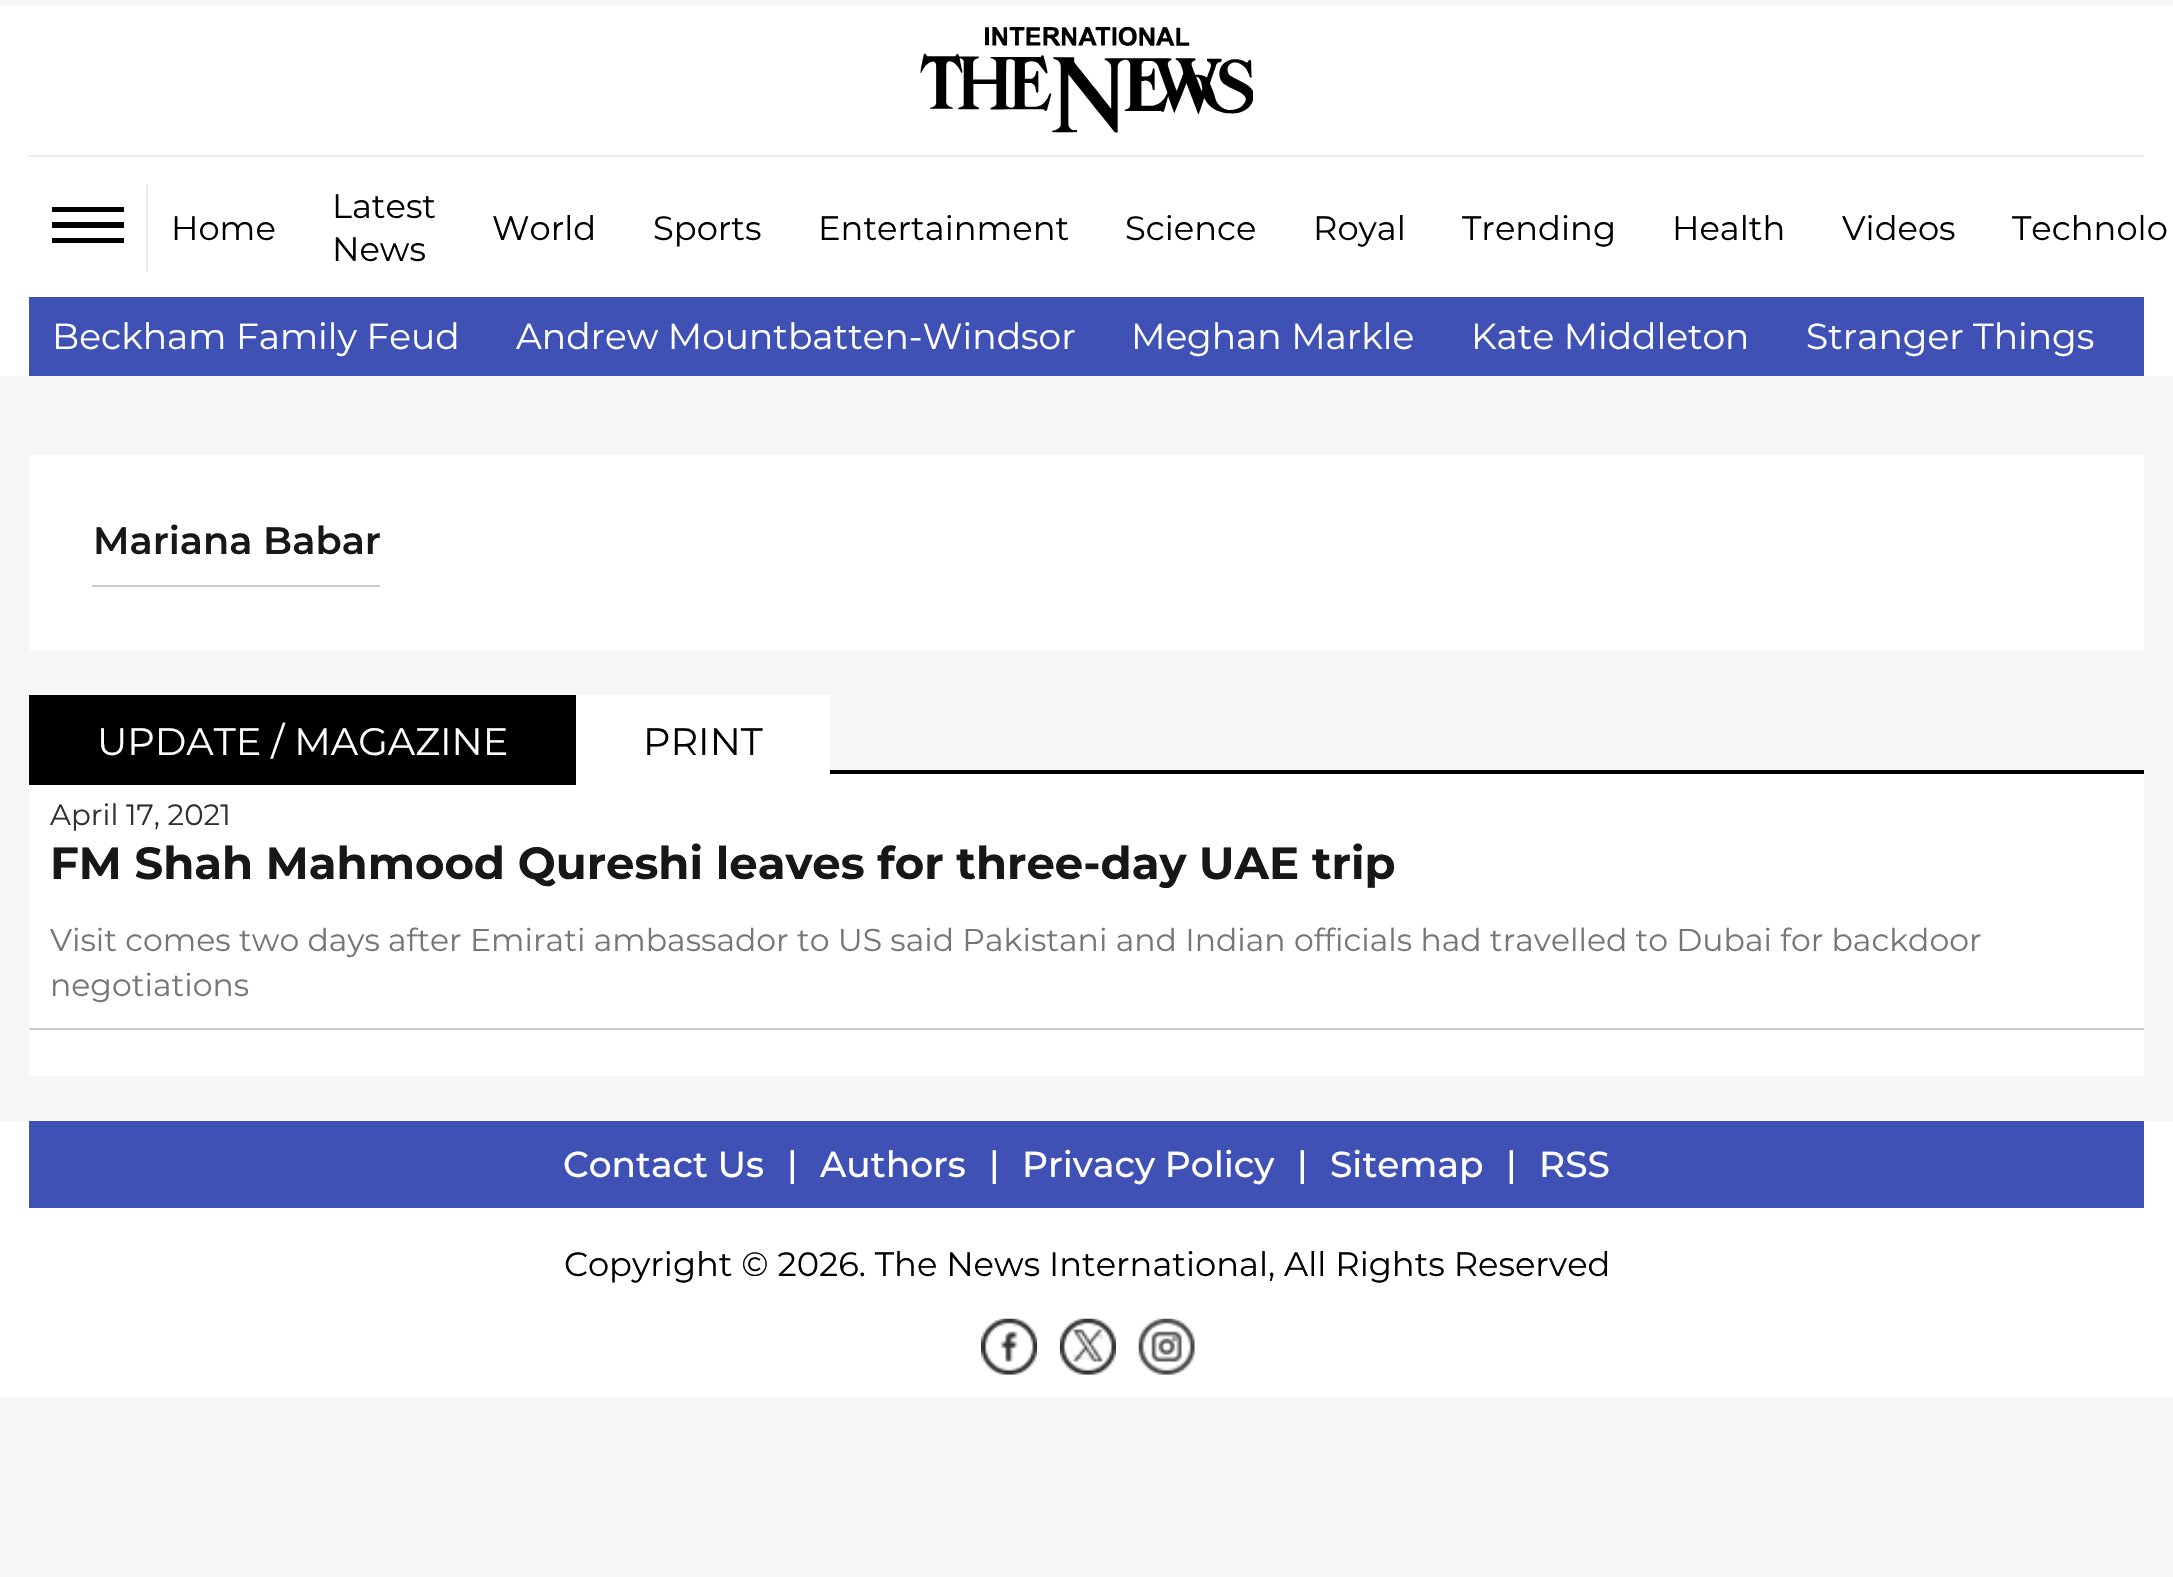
void draw(SkCanvas* canvas) {
	SkPaint fill;
	fill.setAntiAlias(true);
	auto makeFont = [&](const char* family, int weight, float size, bool italic = false) {
		SkFontStyle style(weight, SkFontStyle::kNormal_Width,
			italic ? SkFontStyle::kItalic_Slant : SkFontStyle::kUpright_Slant);
		SkFont result(fontMgr->matchFamilyStyle(family, style), size);
		result.setSubpixel(true);
		return result;
	};
	auto text = [&](const char* s, float x, float y, const SkFont& font) {
		canvas->drawString(s, x, y, font, fill);
	};
	auto box = [&](float l, float t, float r, float b) {
		canvas->drawRect(SkRect::MakeLTRB(l, t, r, b), fill);
	};
	auto picture = [&](const char* path, float l, float t, float r, float b) {
		auto image = SkImages::DeferredFromEncodedData(SkData::MakeFromFileName(path));
		canvas->drawImageRect(image, SkRect::MakeLTRB(l, t, r, b), SkSamplingOptions());
	};
	canvas->clear(0xFFF6F6F6);
	fill.setColor(0xFFFFFFFF);
	box(0, 5, 2173, 376);
	picture("image0.png", 920, 27, 1253, 133);
	fill.setColor(0xFFEBEBEB);
	box(29, 155, 2144, 157);
	box(146, 185, 148, 272);
	fill.setColor(0xFF000000);
	box(52, 207, 124, 212);
	box(52, 222, 124, 228);
	box(52, 238, 124, 243);
	fill.setColor(0xFF3F51B5);
	box(29, 297, 2144, 376);
	fill.setColor(0xFFFFFFFF);
	box(29, 455, 2144, 650);
	fill.setColor(0xFFCCCCCC);
	box(92, 585, 380, 587);
	fill.setColor(0xFF000000);
	box(830, 770, 2144, 774);
	fill.setColor(0xFFFFFFFF);
	box(29, 774, 2144, 1076);
	fill.setColor(0xFF000000);
	box(29, 695, 576, 785);
	fill.setColor(0xFFFFFFFF);
	box(576, 695, 830, 774);
	fill.setColor(0xFFCCCCCC);
	box(29, 1028, 2144, 1030);
	fill.setColor(0xFFFFFFFF);
	box(0, 1121, 2173, 1397);
	fill.setColor(0xFF3F51B5);
	box(29, 1121, 2144, 1208);
	picture("image1.png", 981, 1318, 1038, 1375);
	picture("image2.png", 1059, 1318, 1116, 1375);
	picture("image3.png", 1138, 1318, 1195, 1375);
	auto font1 = makeFont("Montserrat", 400, 33.75f);
	fill.setColor(0xFF000000);
	text("Home", 171, 240, font1);
	text("Latest", 332, 218, font1);
	text("News", 332, 261, font1);
	text("World", 492, 240, font1);
	text("Sports", 653, 240, font1);
	text("Entertainment", 818, 240, font1);
	text("Science", 1125, 240, font1);
	text("Royal", 1313, 240, font1);
	text("Trending", 1462, 240, font1);
	text("Health", 1672, 240, font1);
	text("Videos", 1842, 240, font1);
	text("Technolo", 2012, 240, font1);
	auto font2 = makeFont("Montserrat", 400, 36);
	fill.setColor(0xFFFFFFFF);
	text("Beckham Family Feud", 52, 349, font2);
	text("Andrew Mountbatten-Windsor", 516, 349, font2);
	text("Meghan Markle", 1131, 349, font2);
	text("Kate Middleton", 1471, 349, font2);
	text("Stranger Things", 1806, 349, font2);
	auto font3 = makeFont("Montserrat", 600, 38.25f);
	fill.setColor(0xFF181716);
	text("Mariana Babar", 93, 554, font3);
	auto font4 = makeFont("Montserrat", 400, 38.25f);
	fill.setColor(0xFFFFFFFF);
	text("UPDATE / MAGAZINE", 97, 755, font4);
	fill.setColor(0xFF000000);
	text("PRINT", 643, 755, font4);
	auto font5 = makeFont("Montserrat", 400, 29.25f);
	fill.setColor(0xFF303030);
	text("April 17, 2021", 50, 825, font5);
	auto font6 = makeFont("Montserrat", 700, 45);
	fill.setColor(0xFF181716);
	text("FM Shah Mahmood Qureshi leaves for three-day UAE trip", 50, 879, font6);
	auto font7 = makeFont("Montserrat", 400, 31.5f);
	fill.setColor(0xFF767676);
	text("Visit comes two days after Emirati ambassador to US said Pakistani and Indian officials had travelled to Dubai for backdoor", 50, 951, font7);
	text("negotiations", 50, 996, font7);
	auto font8 = makeFont("Montserrat", 500, 36);
	fill.setColor(0xFFFFFFFF);
	text("Contact Us", 563, 1177, font8);
	text("|", 787, 1177, font8);
	text("Authors", 820, 1177, font8);
	text("|", 989, 1177, font8);
	text("Privacy Policy", 1022, 1177, font8);
	text("|", 1297, 1177, font8);
	text("Sitemap", 1330, 1177, font8);
	text("|", 1506, 1177, font8);
	text("RSS", 1539, 1177, font8);
	fill.setColor(0xFF000000);
	text("Copyright © 2026. The News International, All Rights Reserved", 564, 1276, font1);
}
